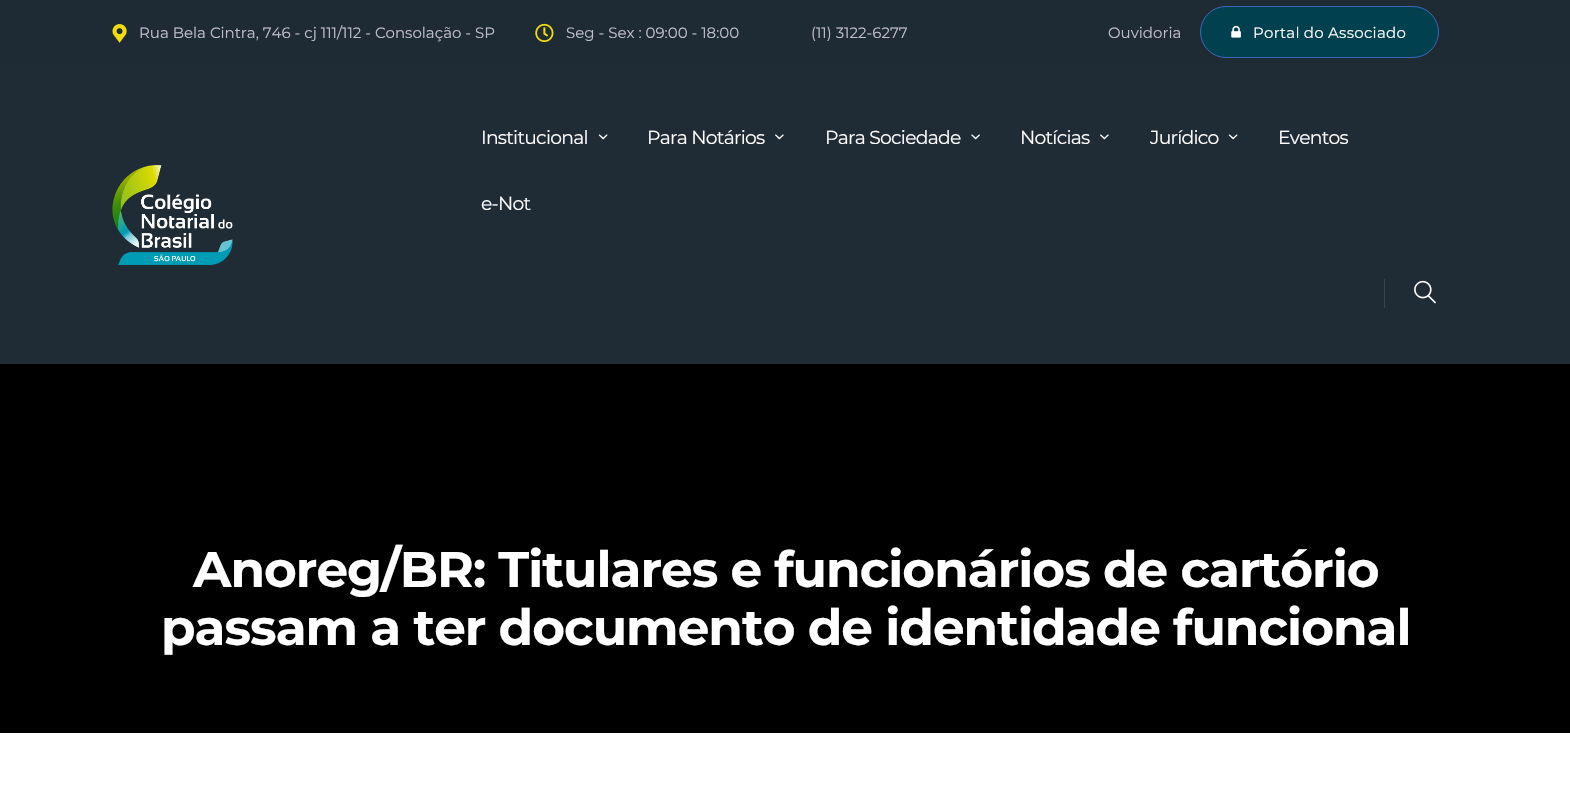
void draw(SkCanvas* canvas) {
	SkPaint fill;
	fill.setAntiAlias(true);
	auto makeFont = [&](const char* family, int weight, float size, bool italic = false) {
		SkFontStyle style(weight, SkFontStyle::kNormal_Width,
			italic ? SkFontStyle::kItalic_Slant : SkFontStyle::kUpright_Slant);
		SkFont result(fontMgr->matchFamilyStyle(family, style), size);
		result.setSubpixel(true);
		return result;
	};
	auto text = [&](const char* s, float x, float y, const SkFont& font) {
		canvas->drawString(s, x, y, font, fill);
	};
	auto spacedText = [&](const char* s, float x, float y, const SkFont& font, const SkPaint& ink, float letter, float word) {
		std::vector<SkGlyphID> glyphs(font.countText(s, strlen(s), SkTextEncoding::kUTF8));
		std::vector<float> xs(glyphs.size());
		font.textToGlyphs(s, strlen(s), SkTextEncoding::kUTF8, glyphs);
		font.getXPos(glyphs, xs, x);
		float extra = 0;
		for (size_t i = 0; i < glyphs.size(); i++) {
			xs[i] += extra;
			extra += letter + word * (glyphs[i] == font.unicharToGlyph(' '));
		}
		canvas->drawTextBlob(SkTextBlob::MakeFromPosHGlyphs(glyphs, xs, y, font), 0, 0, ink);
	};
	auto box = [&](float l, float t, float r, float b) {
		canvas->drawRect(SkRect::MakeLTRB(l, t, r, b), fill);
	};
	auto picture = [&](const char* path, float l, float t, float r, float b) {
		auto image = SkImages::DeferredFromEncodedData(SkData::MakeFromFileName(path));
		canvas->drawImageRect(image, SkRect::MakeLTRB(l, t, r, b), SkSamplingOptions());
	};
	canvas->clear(0xFFFFFFFF);
	fill.setColor(0xFF000000);
	box(0, 364, 1570, 733);
	fill.setColor(0xFF1E2A34);
	box(0, 0, 1570, 64);
	picture("image0.png", 112, 24, 127, 43);
	picture("image1.png", 535, 23, 554, 43);
	fill.setColor(0xFF01404F);
	canvas->drawRoundRect(SkRect::MakeLTRB(1200.5f, 6.5f, 1438.5f, 57.5f), 25.5f, 25.5f, fill);
	fill.setStyle(SkPaint::kStroke_Style);
	fill.setStrokeWidth(1);
	fill.setColor(0xFF3D65B8);
	canvas->drawRoundRect(SkRect::MakeLTRB(1200.5f, 6.5f, 1438.5f, 57.5f), 25.5f, 25.5f, fill);
	picture("image2.png", 1231, 25, 1241, 38);
	fill.setStyle(SkPaint::kFill_Style);
	fill.setColor(0xFF1F2C36);
	box(0, 64, 1570, 364);
	picture("image3.png", 112, 165, 233, 265);
	picture("image4.png", 598, 134, 608, 140);
	picture("image5.png", 775, 134, 784, 140);
	picture("image6.png", 971, 134, 980, 140);
	picture("image5.png", 1100, 134, 1109, 140);
	picture("image4.png", 1228, 134, 1238, 140);
	fill.setColor(0xFF38434C);
	box(1384, 279, 1385, 308);
	picture("image7.png", 1414, 280, 1436, 304);
	auto font1 = makeFont("Montserrat", 400, 15);
	fill.setColor(0xFFC0BFCB);
	text("Rua Bela Cintra, 746 - cj 111/112 - Consolação - SP", 139, 38, font1);
	text("Seg - Sex : 09:00 - 18:00", 566, 38, font1);
	text("(11) 3122-6277", 811, 38, font1);
	text("Ouvidoria", 1108, 38, font1);
	fill.setColor(0xFFFFFFFF);
	spacedText("Portal do Associado", 1253, 38, font1, fill, 0.25f, 0);
	auto font2 = makeFont("Montserrat", 400, 18.75f);
	spacedText("Institucional", 481, 144, font2, fill, -0.75f, 0);
	spacedText("Para Notários", 647, 144, font2, fill, -0.75f, 0);
	spacedText("Para Sociedade", 825, 144, font2, fill, -0.75f, 0);
	spacedText("Notícias", 1020, 144, font2, fill, -0.75f, 0);
	spacedText("Jurídico", 1150, 144, font2, fill, -0.75f, 0);
	spacedText("Eventos", 1278, 144, font2, fill, -0.75f, 0);
	spacedText("e-Not", 481, 210, font2, fill, -0.75f, 0);
	auto font3 = makeFont("Montserrat", 700, 50.1f);
	spacedText("Anoreg/BR: Titulares e funcionários de cartório", 193, 587, font3, fill, -1, 0);
	spacedText("passam a ter documento de identidade funcional", 161, 645, font3, fill, -1, 0);
}
